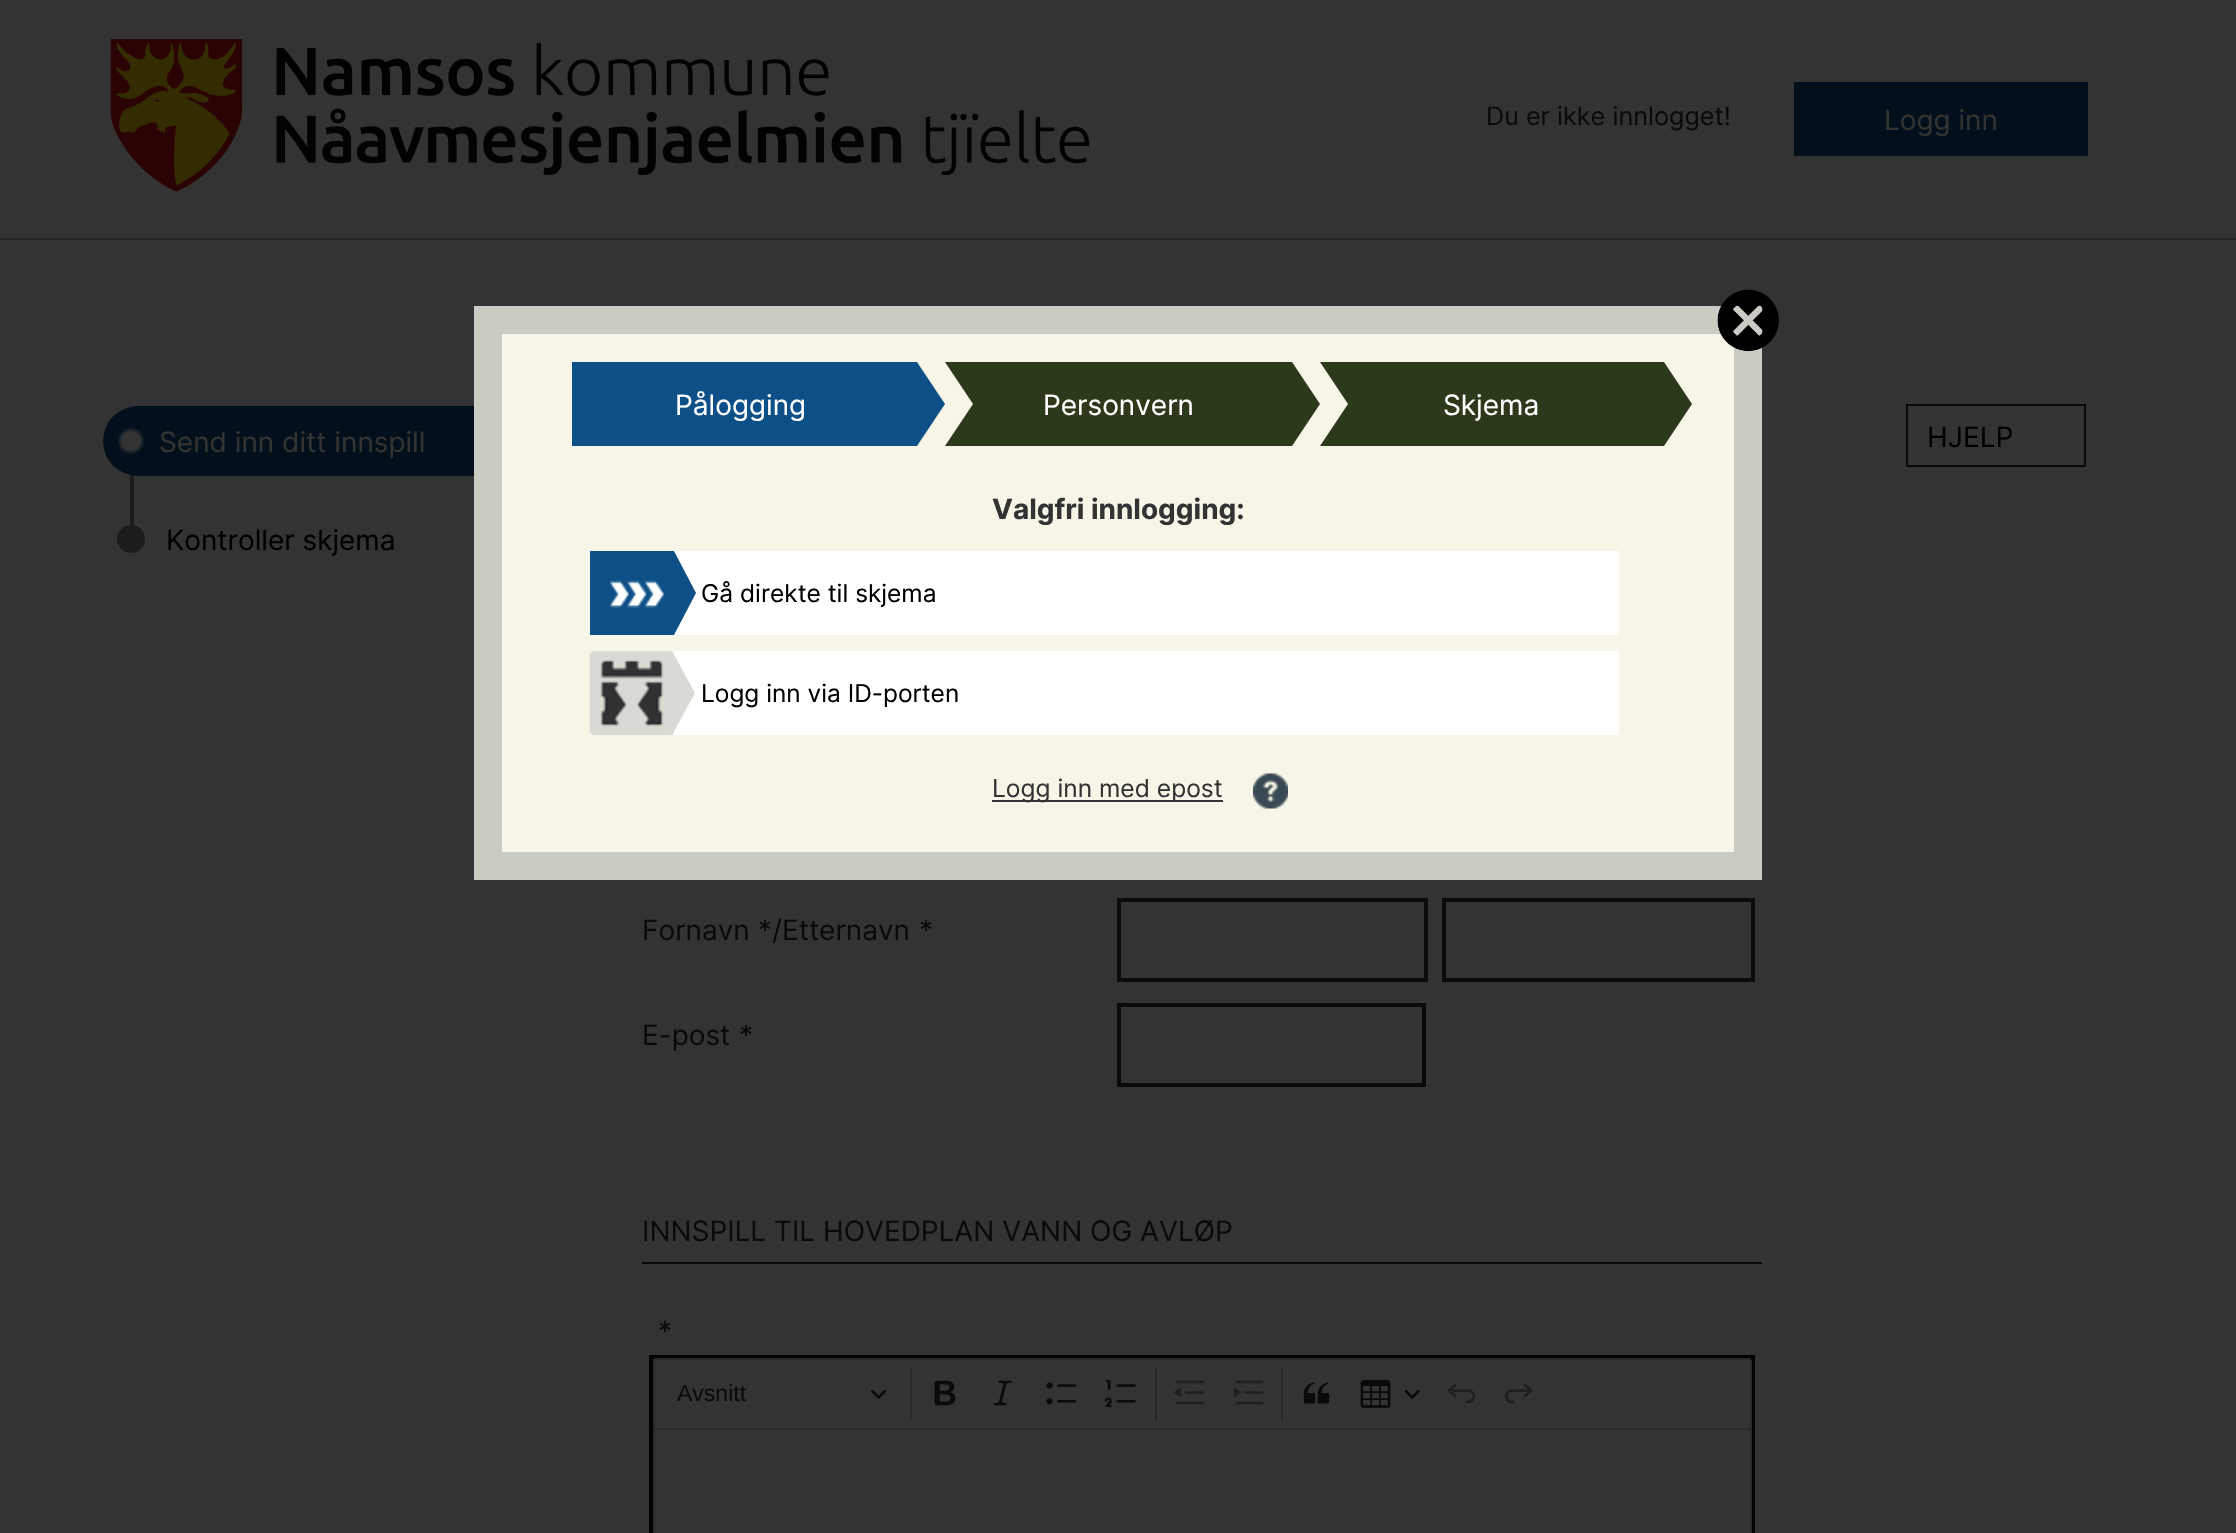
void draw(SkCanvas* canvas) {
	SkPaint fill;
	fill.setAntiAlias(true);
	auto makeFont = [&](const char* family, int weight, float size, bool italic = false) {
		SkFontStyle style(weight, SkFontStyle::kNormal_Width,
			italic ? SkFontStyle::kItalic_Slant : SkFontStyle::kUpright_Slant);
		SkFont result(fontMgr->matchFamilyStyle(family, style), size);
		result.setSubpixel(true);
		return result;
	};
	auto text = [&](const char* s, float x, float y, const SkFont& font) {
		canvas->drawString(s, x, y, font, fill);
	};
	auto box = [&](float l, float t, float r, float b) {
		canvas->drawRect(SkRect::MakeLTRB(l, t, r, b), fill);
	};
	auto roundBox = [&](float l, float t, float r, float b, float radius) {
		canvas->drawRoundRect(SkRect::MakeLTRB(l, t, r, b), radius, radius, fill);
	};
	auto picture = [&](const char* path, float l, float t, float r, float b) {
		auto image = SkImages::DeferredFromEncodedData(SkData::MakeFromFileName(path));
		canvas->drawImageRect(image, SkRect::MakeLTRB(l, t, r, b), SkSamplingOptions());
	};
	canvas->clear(0xFF333333);
	picture("image0.png", 110, 39, 1090, 192);
	fill.setColor(0xFF03101B);
	box(1794, 82, 2088, 156);
	fill.setColor(0xFF272727);
	box(0, 238, 2236, 240);
	fill.setColor(0xFF1C1C1C);
	box(130, 475, 134, 526);
	fill.setColor(0xFF03101B);
	roundBox(103, 406, 586, 476, 35);
	{
		const SkColor colors[] = {0xFF333333, 0xFF333333, 0x00333333, 0x00000000};
		const float stops[] = {0, 0.02f, 0.03f, 1};
		fill.setShader(SkGradientShader::MakeRadial({131, 441}, 456, colors, stops, 4, SkTileMode::kClamp));
		fill.setAlpha(255);
	}
	box(118, 428, 144, 454);
	fill.setShader(nullptr);
	fill.setColor(0xFF1C1C1C);
	canvas->drawCircle(131, 539, 14, fill);
	fill.setStyle(SkPaint::kStroke_Style);
	fill.setStrokeWidth(2);
	fill.setColor(0xFF0A0A0A);
	canvas->drawRect(SkRect::MakeLTRB(1907, 405, 2085, 466), fill);
	fill.setStrokeWidth(4);
	canvas->drawRect(SkRect::MakeLTRB(1119, 900, 1426, 980), fill);
	canvas->drawRect(SkRect::MakeLTRB(1444, 900, 1753, 980), fill);
	canvas->drawRect(SkRect::MakeLTRB(1119, 1005, 1424, 1085), fill);
	fill.setStyle(SkPaint::kFill_Style);
	box(642, 1262, 1762, 1264);
	fill.setStyle(SkPaint::kStroke_Style);
	fill.setColor(0xFF000000);
	canvas->drawRect(SkRect::MakeLTRB(651, 1357, 1753, 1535), fill);
	fill.setStyle(SkPaint::kFill_Style);
	fill.setColor(0xFF29292A);
	box(655, 1358, 1750, 1360);
	box(1750, 1360, 1752, 1428);
	box(653, 1360, 655, 1428);
	picture("image1.png", 871, 1389, 886, 1399);
	box(910, 1367, 912, 1421);
	picture("image2.png", 934, 1380, 956, 1406);
	picture("image3.png", 993, 1380, 1012, 1406);
	picture("image4.png", 1046, 1382, 1077, 1405);
	picture("image5.png", 1104, 1380, 1136, 1407);
	box(1155, 1367, 1157, 1421);
	picture("image6.png", 1174, 1380, 1204, 1405);
	picture("image7.png", 1233, 1380, 1264, 1405);
	box(1281, 1367, 1283, 1421);
	picture("image8.png", 1303, 1382, 1330, 1404);
	picture("image9.png", 1360, 1379, 1391, 1408);
	picture("image10.png", 1404, 1389, 1420, 1399);
	picture("image11.png", 1447, 1383, 1476, 1404);
	picture("image12.png", 1505, 1383, 1533, 1404);
	fill.setStyle(SkPaint::kStroke_Style);
	fill.setStrokeWidth(2);
	canvas->drawRect(SkRect::MakeLTRB(654, 1429, 1751, 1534), fill);
	fill.setStyle(SkPaint::kFill_Style);
	fill.setColor(0xFFF7F5E8);
	canvas->drawRect(SkRect::MakeLTRB(488, 320, 1748, 866), fill);
	fill.setStyle(SkPaint::kStroke_Style);
	fill.setStrokeWidth(28);
	fill.setColor(0xFFC8CCC3);
	canvas->drawRect(SkRect::MakeLTRB(488, 320, 1748, 866), fill);
	picture("image13.png", 1717, 289, 1779, 352);
	fill.setStyle(SkPaint::kFill_Style);
	fill.setColor(0xFF0D5088);
	box(572, 362, 917, 446);
	canvas->drawPath(SkPathBuilder().moveTo(917, 446).lineTo(917, 362).lineTo(945, 404).close().detach(), fill);
	fill.setColor(0xFF2C3A1B);
	box(945, 362, 1292, 446);
	fill.setColor(0xFFF7F5E8);
	canvas->drawPath(SkPathBuilder().moveTo(945, 446).lineTo(945, 362).lineTo(973, 404).close().detach(), fill);
	fill.setColor(0xFF2C3A1B);
	canvas->drawPath(SkPathBuilder().moveTo(1292, 446).lineTo(1292, 362).lineTo(1320, 404).close().detach(), fill);
	box(1320, 362, 1664, 446);
	fill.setColor(0xFFF7F5E8);
	canvas->drawPath(SkPathBuilder().moveTo(1320, 446).lineTo(1320, 362).lineTo(1348, 404).close().detach(), fill);
	fill.setColor(0xFF2C3A1B);
	canvas->drawPath(SkPathBuilder().moveTo(1664, 446).lineTo(1664, 362).lineTo(1692, 404).close().detach(), fill);
	fill.setColor(0xFFFFFFFF);
	box(674, 551, 1619, 635);
	fill.setColor(0xFF0D5088);
	box(590, 551, 674, 635);
	picture("image14.png", 609, 580, 664, 608);
	canvas->drawPath(SkPathBuilder().moveTo(674, 635).lineTo(674, 551).lineTo(696, 593).close().detach(), fill);
	fill.setColor(0xFFFFFFFF);
	box(590, 651, 1619, 735);
	picture("image15.png", 589, 651, 674, 735);
	fill.setColor(0xFFDADAD5);
	canvas->drawPath(SkPathBuilder().moveTo(672, 735).lineTo(672, 651).lineTo(695, 693).close().detach(), fill);
	fill.setColor(0xFF323232);
	box(992, 800, 1223, 802);
	picture("image16.png", 1253, 773, 1288, 809);
	auto font1 = makeFont("Inter", 400, 25.25f);
	fill.setColor(0xFF0A0A0A);
	text("Du er ikke innlogget!", 1486, 125, font1);
	auto font2 = makeFont("Inter", 400, 28);
	fill.setColor(0xFF333333);
	text("Logg inn", 1884, 130, font2);
	text("Send inn ditt innspill", 159, 452, font2);
	fill.setColor(0xFF000000);
	text("Kontroller skjema", 166, 550, font2);
	text("HJELP", 1927, 447, font2);
	fill.setColor(0xFF0A0A0A);
	text("Fornavn", 642, 940, font2);
	text("*/Etternavn", 758, 940, font2);
	text("*", 919, 940, font2);
	text("E-post", 642, 1045, font2);
	text("*", 739, 1045, font2);
	text("INNSPILL TIL HOVEDPLAN VANN OG AVLØP", 642, 1241, font2);
	text("*", 658, 1341, font2);
	auto font3 = makeFont("Liberation Sans", 400, 23);
	text("Avsnitt", 677, 1401, font3);
	fill.setColor(0xFFFFFFFF);
	text("Pålogging", 675, 415, font2);
	text("Personvern", 1043, 415, font2);
	text("Skjema", 1443, 415, font2);
	auto font4 = makeFont("Inter", 700, 28);
	fill.setColor(0xFF333333);
	text("Valgfri innlogging:", 992, 519, font4);
	auto font5 = makeFont("Inter", 400, 24.5f);
	fill.setColor(0xFF000000);
	text("Gå direkte til skjema", 701, 602, font5);
	text("Logg inn via ID-porten", 701, 702, font5);
	auto font6 = makeFont("Inter", 400, 24.6f);
	fill.setColor(0xFF333333);
	text("Logg inn med epost", 992, 797, font6);
}
